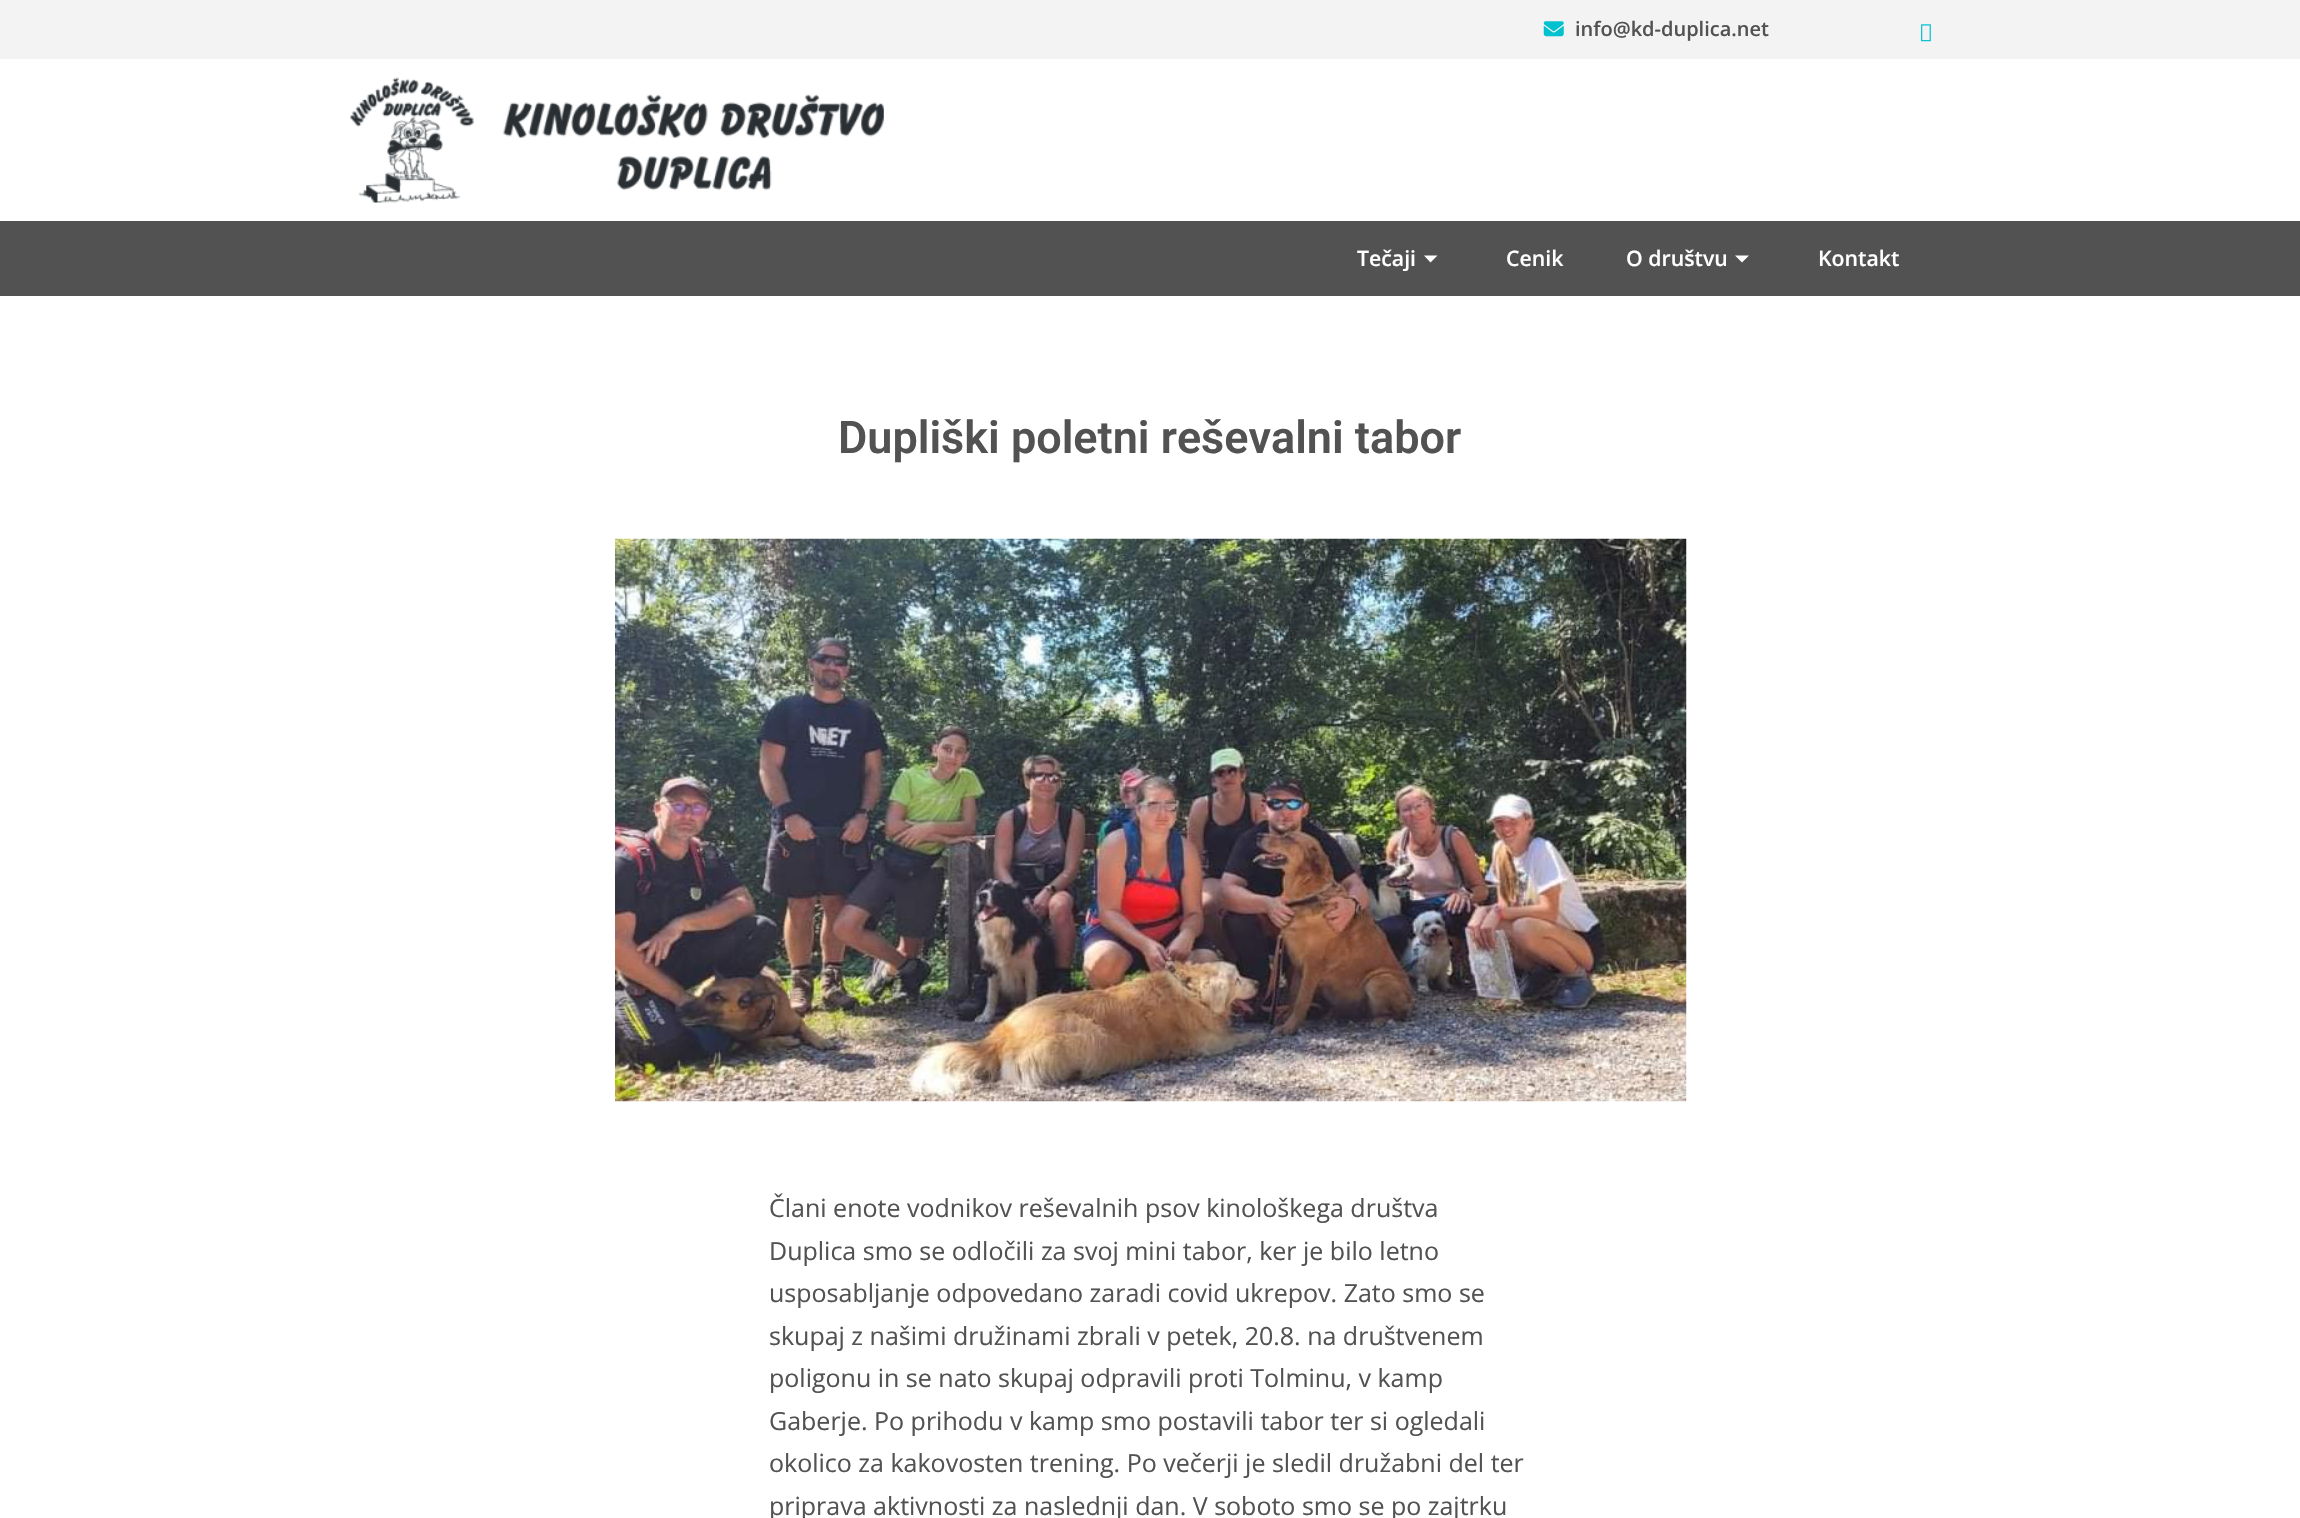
void draw(SkCanvas* canvas) {
	SkPaint fill;
	fill.setAntiAlias(true);
	auto makeFont = [&](const char* family, int weight, float size, bool italic = false) {
		SkFontStyle style(weight, SkFontStyle::kNormal_Width,
			italic ? SkFontStyle::kItalic_Slant : SkFontStyle::kUpright_Slant);
		SkFont result(fontMgr->matchFamilyStyle(family, style), size);
		result.setSubpixel(true);
		return result;
	};
	auto text = [&](const char* s, float x, float y, const SkFont& font) {
		canvas->drawString(s, x, y, font, fill);
	};
	auto box = [&](float l, float t, float r, float b) {
		canvas->drawRect(SkRect::MakeLTRB(l, t, r, b), fill);
	};
	auto picture = [&](const char* path, float l, float t, float r, float b) {
		auto image = SkImages::DeferredFromEncodedData(SkData::MakeFromFileName(path));
		canvas->drawImageRect(image, SkRect::MakeLTRB(l, t, r, b), SkSamplingOptions());
	};
	canvas->clear(0xFFFFFFFF);
	fill.setColor(0xFFF3F3F3);
	box(0, 0, 2300, 59);
	picture("image0.png", 1543, 21, 1564, 37);
	picture("image1.png", 1921, 24, 1931, 42);
	picture("image2.png", 350, 77, 884, 203);
	fill.setColor(0xFF525252);
	box(0, 221, 2300, 296);
	fill.setColor(0xFFFFFFFF);
	canvas->drawPath(SkPathBuilder().moveTo(1424, 255.5f).lineTo(1437.5f, 255.5f).lineTo(1430.5f, 262.5f).close().detach(), fill);
	canvas->drawPath(SkPathBuilder().moveTo(1735, 255.5f).lineTo(1749, 255.5f).lineTo(1742, 262.5f).close().detach(), fill);
	picture("image3.png", 615, 538, 1687, 1102);
	auto font1 = makeFont("Open Sans", 600, 20);
	fill.setColor(0xFF525252);
	text("info@kd-duplica.net", 1575, 36, font1);
	auto font2 = makeFont("Open Sans", 600, 21.25f);
	fill.setColor(0xFFFFFFFF);
	text("Tečaji", 1357, 266, font2);
	text("Cenik", 1506, 266, font2);
	text("O društvu", 1626, 266, font2);
	text("Kontakt", 1818, 266, font2);
	auto font3 = makeFont("Roboto", 600, 45);
	fill.setColor(0xFF525252);
	text("Dupliški poletni reševalni tabor", 838, 453, font3);
	auto font4 = makeFont("Open Sans", 400, 25);
	text("Člani enote vodnikov reševalnih psov kinološkega društva", 769, 1217, font4);
	text("Duplica smo se odločili za svoj mini tabor, ker je bilo letno", 769, 1260, font4);
	text("usposabljanje odpovedano zaradi covid ukrepov. Zato smo se", 769, 1302, font4);
	text("skupaj z našimi družinami zbrali v petek, 20.8. na društvenem", 769, 1345, font4);
	text("poligonu in se nato skupaj odpravili proti Tolminu, v kamp", 769, 1387, font4);
	text("Gaberje. Po prihodu v kamp smo postavili tabor ter si ogledali", 769, 1430, font4);
	text("okolico za kakovosten trening. Po večerji je sledil družabni del ter", 769, 1472, font4);
	text("priprava aktivnosti za naslednji dan. V soboto smo se po zajtrku", 769, 1515, font4);
}
